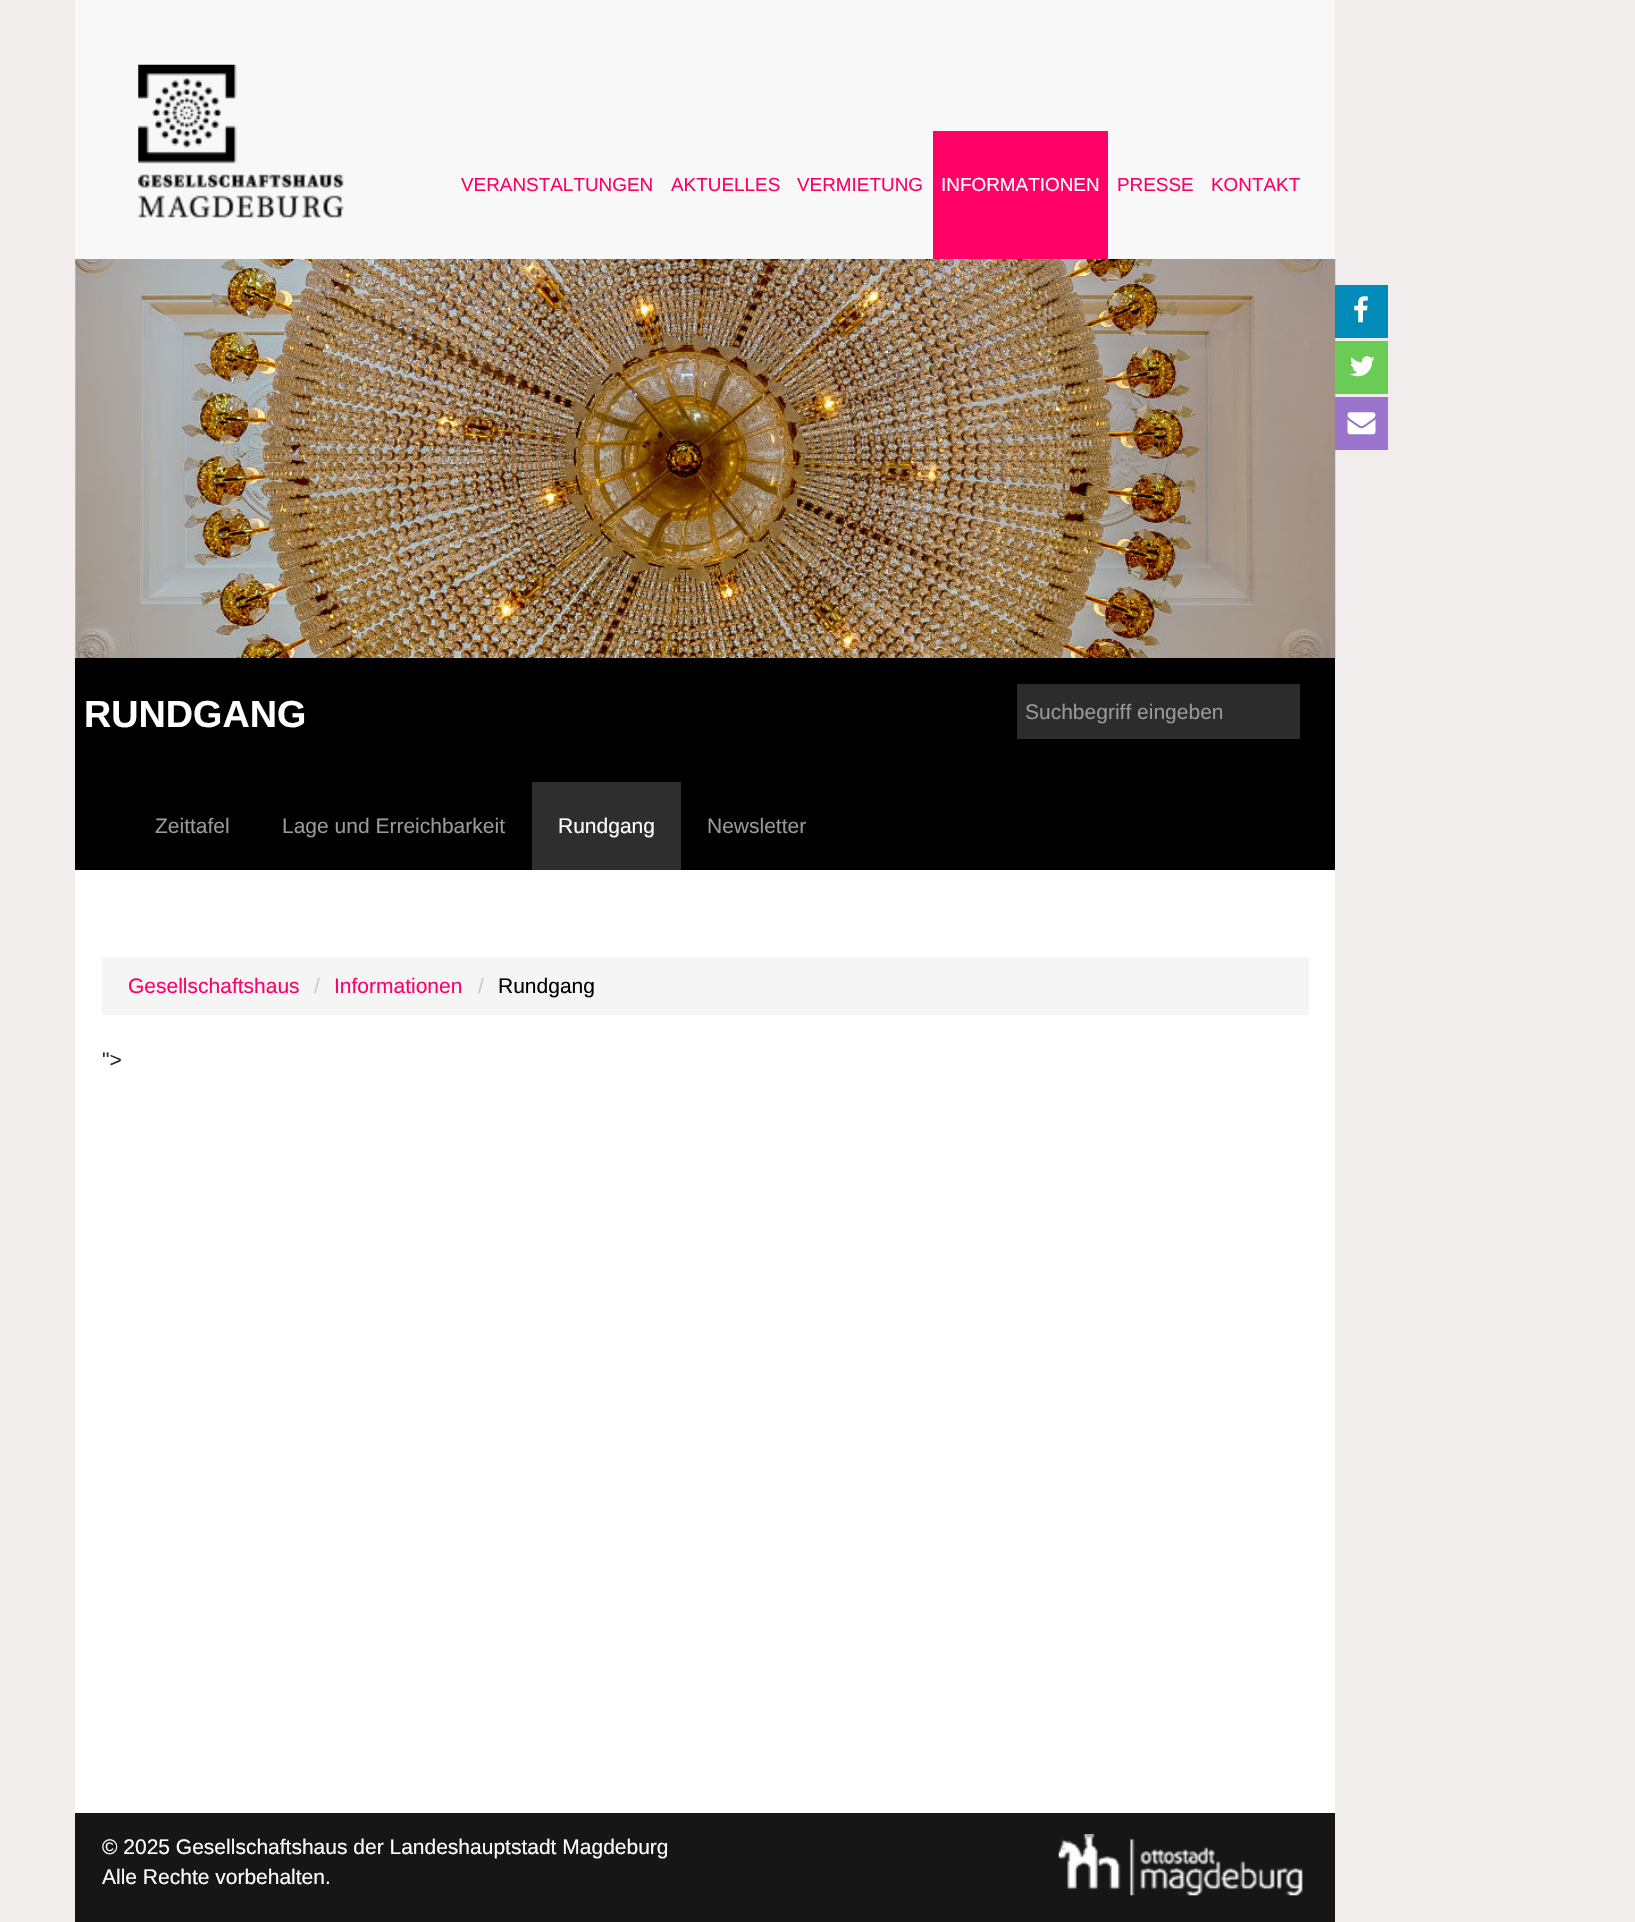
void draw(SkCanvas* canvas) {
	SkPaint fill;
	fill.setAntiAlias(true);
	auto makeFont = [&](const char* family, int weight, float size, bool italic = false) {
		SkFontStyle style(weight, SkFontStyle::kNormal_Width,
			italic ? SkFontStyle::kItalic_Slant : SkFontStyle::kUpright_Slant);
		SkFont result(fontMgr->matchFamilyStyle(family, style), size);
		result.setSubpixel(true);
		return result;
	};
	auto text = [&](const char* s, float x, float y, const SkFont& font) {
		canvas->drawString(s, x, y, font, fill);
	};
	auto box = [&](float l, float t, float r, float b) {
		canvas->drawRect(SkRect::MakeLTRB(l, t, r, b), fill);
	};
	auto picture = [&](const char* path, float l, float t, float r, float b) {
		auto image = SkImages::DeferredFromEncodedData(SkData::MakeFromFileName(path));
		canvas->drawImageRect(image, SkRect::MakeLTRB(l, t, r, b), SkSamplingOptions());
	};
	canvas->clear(0xFFF0EDEC);
	fill.setColor(0xFFF8F8F8);
	box(75, 0, 1335, 259);
	picture("image0.png", 138, 64, 344, 218);
	fill.setColor(0xFFFF0066);
	box(933, 131, 1108, 259);
	picture("image1.png", 75, 259, 1336, 658);
	fill.setColor(0xFF000000);
	box(75, 658, 1335, 870);
	fill.setColor(0xFF2D2C2C);
	box(1017, 686, 1300, 739);
	fill.setColor(0xFF2A2929);
	box(1017, 684, 1300, 686);
	fill.setColor(0xFF2F2E2E);
	box(532, 782, 681, 870);
	fill.setColor(0xFF008BB9);
	box(1335, 285, 1388, 338);
	picture("image2.png", 1354, 296, 1368, 323);
	fill.setColor(0xFF6BCC55);
	box(1335, 341, 1388, 394);
	picture("image3.png", 1350, 356, 1375, 377);
	fill.setColor(0xFF9973CC);
	box(1335, 397, 1388, 450);
	picture("image4.png", 1347, 412, 1376, 435);
	fill.setColor(0xFFFFFFFF);
	box(75, 870, 1335, 1813);
	fill.setColor(0xFFF5F5F5);
	box(102, 957, 1309, 1015);
	fill.setColor(0xFF171616);
	box(75, 1813, 1335, 1922);
	picture("image5.png", 1058, 1834, 1303, 1896);
	auto font1 = makeFont("Liberation Sans", 400, 18.9f);
	fill.setColor(0xFFFF0066);
	text("VERANSTALTUNGEN", 461, 191, font1);
	text("AKTUELLES", 671, 191, font1);
	text("VERMIETUNG", 797, 191, font1);
	fill.setColor(0xFFFFFFFF);
	text("INFORMATIONEN", 941, 191, font1);
	fill.setColor(0xFFFF0066);
	text("PRESSE", 1117, 191, font1);
	text("KONTAKT", 1211, 191, font1);
	auto font2 = makeFont("Liberation Sans", 700, 37.75f);
	fill.setColor(0xFFFFFFFF);
	text("RUNDGANG", 84, 727, font2);
	auto font3 = makeFont("Liberation Sans", 400, 21);
	fill.setColor(0xFF999999);
	text("Suchbegriff eingeben", 1025, 719, font3);
	text("Zeittafel", 155, 833, font3);
	text("Lage und Erreichbarkeit", 282, 833, font3);
	fill.setColor(0xFFFFFFFF);
	text("Rundgang", 558, 833, font3);
	fill.setColor(0xFF999999);
	text("Newsletter", 707, 833, font3);
	fill.setColor(0xFFFF0066);
	text("Gesellschaftshaus", 128, 993, font3);
	fill.setColor(0xFFCCCCCC);
	text("/", 314, 993, font3);
	fill.setColor(0xFFFF0066);
	text("Informationen", 334, 993, font3);
	fill.setColor(0xFFCCCCCC);
	text("/", 478, 993, font3);
	fill.setColor(0xFF000000);
	text("Rundgang", 498, 993, font3);
	fill.setColor(0xFF2F2E2E);
	text("\">", 102, 1067, font3);
	fill.setColor(0xFFFFFFFF);
	text("© 2025 Gesellschaftshaus der Landeshauptstadt Magdeburg", 102, 1854, font3);
	text("Alle Rechte vorbehalten.", 102, 1884, font3);
}
